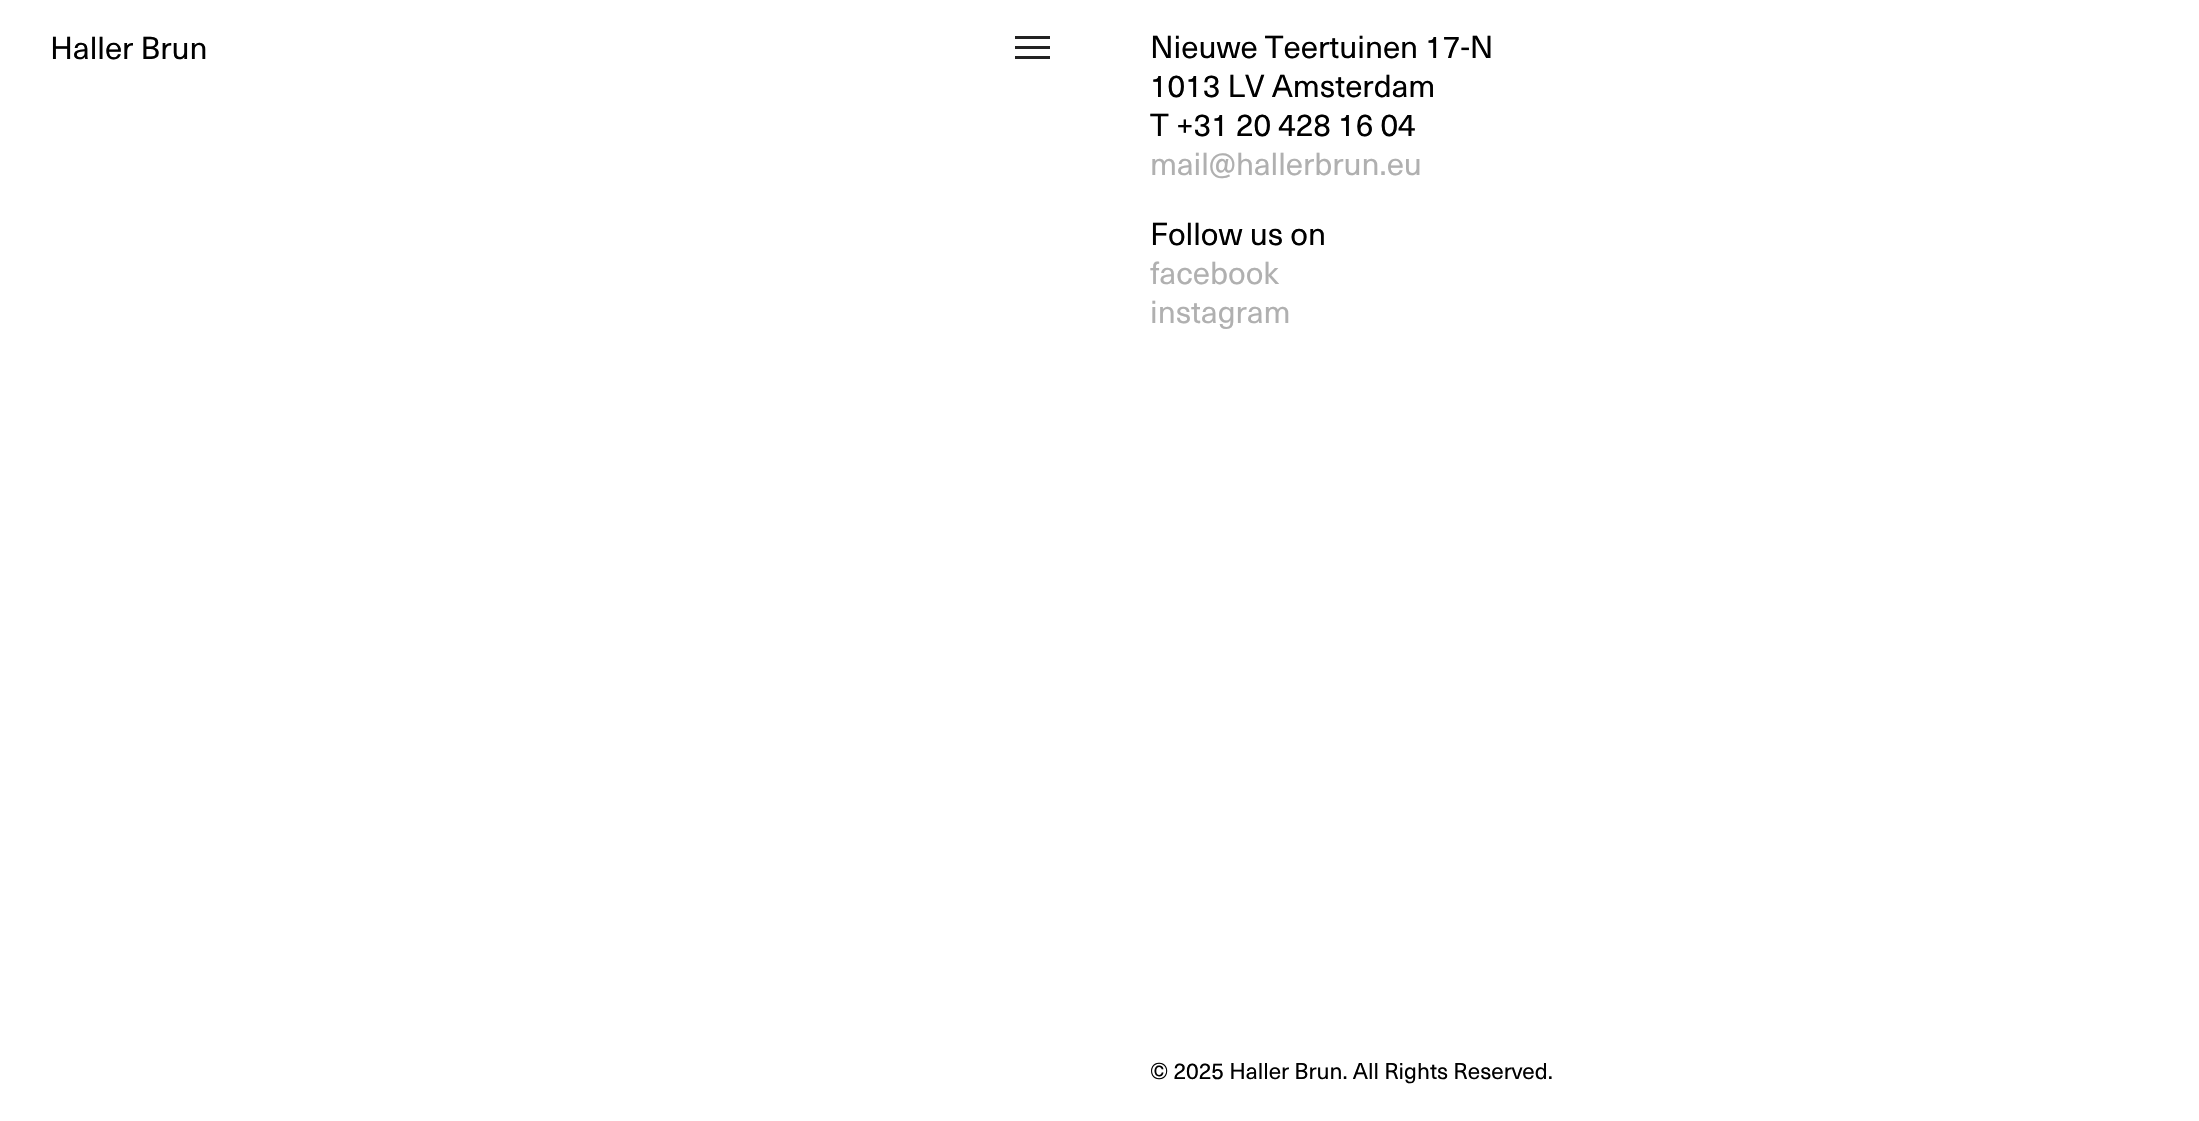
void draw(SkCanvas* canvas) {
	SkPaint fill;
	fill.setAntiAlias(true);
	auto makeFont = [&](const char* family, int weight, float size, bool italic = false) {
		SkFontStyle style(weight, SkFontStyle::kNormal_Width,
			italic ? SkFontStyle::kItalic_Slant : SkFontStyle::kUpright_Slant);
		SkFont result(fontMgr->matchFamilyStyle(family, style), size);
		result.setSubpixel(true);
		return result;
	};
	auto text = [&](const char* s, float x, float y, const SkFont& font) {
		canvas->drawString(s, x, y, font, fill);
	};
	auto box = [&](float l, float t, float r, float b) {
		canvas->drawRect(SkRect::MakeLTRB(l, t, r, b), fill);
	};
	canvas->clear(0xFFFFFFFF);
	fill.setColor(0xFF222222);
	box(1015, 46, 1050, 49);
	box(1015, 36, 1050, 39);
	box(1015, 56, 1050, 59);
	auto font1 = makeFont("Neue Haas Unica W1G", 400, 31.25f);
	fill.setColor(0xFF000000);
	text("Haller Brun", 50, 59, font1);
	text("Nieuwe Teertuinen 17-N", 1150, 58, font1);
	text("1013 LV Amsterdam", 1150, 97, font1);
	text("T +31 20 428 16 04", 1150, 136, font1);
	fill.setColor(0xFFB0B0B0);
	text("mail@hallerbrun.eu", 1150, 175, font1);
	fill.setColor(0xFF000000);
	text("Follow us on", 1150, 245, font1);
	fill.setColor(0xFFB0B0B0);
	text("facebook", 1150, 284, font1);
	text("instagram", 1150, 323, font1);
	auto font2 = makeFont("Neue Haas Unica W1G", 400, 22.5f);
	fill.setColor(0xFF000000);
	text("© 2025 Haller Brun. All Rights Reserved.", 1150, 1079, font2);
}
